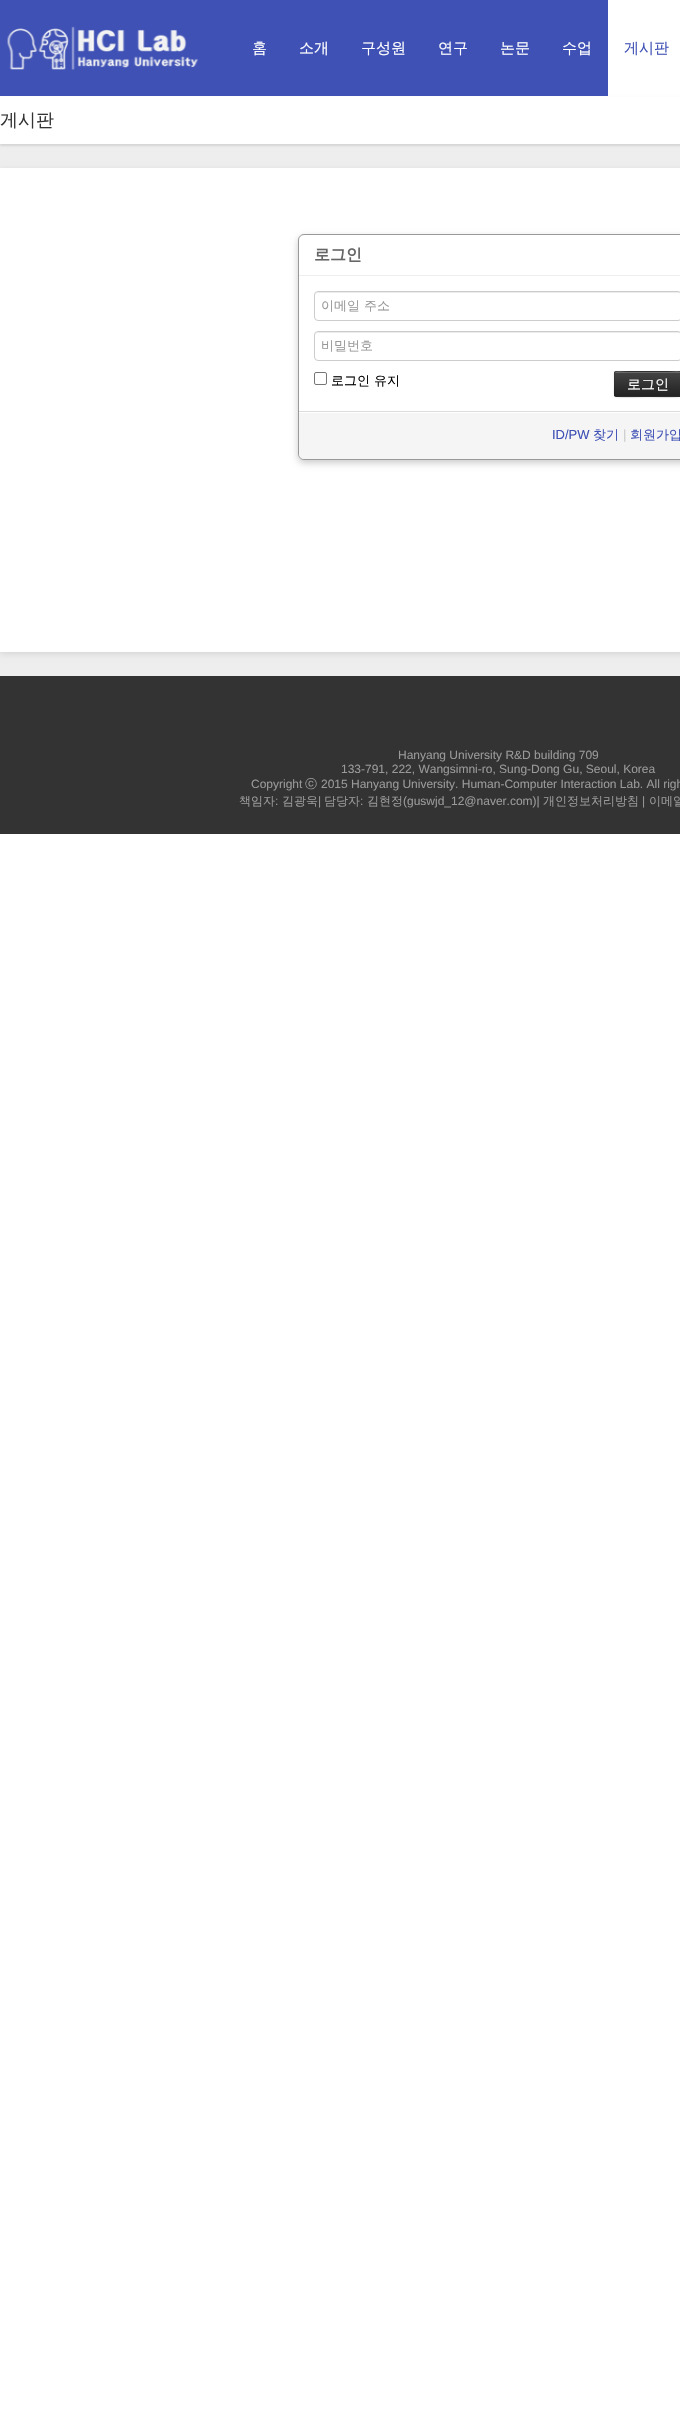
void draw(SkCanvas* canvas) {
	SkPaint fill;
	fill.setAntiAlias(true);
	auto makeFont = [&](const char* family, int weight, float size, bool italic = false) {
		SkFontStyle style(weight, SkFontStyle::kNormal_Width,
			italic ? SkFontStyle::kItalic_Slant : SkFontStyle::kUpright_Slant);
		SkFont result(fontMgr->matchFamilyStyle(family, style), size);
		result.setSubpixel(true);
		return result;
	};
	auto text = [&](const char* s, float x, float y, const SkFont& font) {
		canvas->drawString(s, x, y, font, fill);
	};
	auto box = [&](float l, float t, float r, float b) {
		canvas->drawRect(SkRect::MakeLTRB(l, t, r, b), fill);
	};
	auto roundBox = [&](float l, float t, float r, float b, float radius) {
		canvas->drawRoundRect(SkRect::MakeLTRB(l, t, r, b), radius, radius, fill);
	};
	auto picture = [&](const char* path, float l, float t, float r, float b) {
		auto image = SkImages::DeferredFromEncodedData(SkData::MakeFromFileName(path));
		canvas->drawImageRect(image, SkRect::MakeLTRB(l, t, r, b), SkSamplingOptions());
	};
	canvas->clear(0xFFFFFFFF);
	fill.setColor(0xFFEEEEEE);
	box(0, 144, 680, 676);
	fill.setColor(0x1A000000);
	fill.setMaskFilter(SkMaskFilter::MakeBlur(kNormal_SkBlurStyle, 1));
	canvas->drawRect(SkRect::MakeLTRB(0, 98, 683, 146), fill);
	fill.setMaskFilter(nullptr);
	fill.setColor(0xFF3F51B5);
	box(0, 0, 608, 96);
	picture("image0.png", 7, 26, 199, 70);
	fill.setColor(0xFFFFFFFF);
	box(0, 97, 680, 144);
	fill.setColor(0x1A000000);
	fill.setMaskFilter(SkMaskFilter::MakeBlur(kNormal_SkBlurStyle, 3));
	canvas->drawRect(SkRect::MakeLTRB(0, 170, 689, 654), fill);
	fill.setMaskFilter(nullptr);
	fill.setColor(0xFFFFFFFF);
	box(0, 168, 680, 652);
	fill.setColor(0xFFCCCCCC);
	fill.setMaskFilter(SkMaskFilter::MakeBlur(kNormal_SkBlurStyle, 3.5f));
	canvas->drawRoundRect(SkRect::MakeLTRB(298, 237, 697, 463), 6, 6, fill);
	fill.setMaskFilter(nullptr);
	fill.setColor(0xFFFFFFFF);
	canvas->drawRoundRect(SkRect::MakeLTRB(298.5f, 234.5f, 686.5f, 459.5f), 5.5f, 5.5f, fill);
	fill.setStyle(SkPaint::kStroke_Style);
	fill.setStrokeWidth(1);
	fill.setColor(0xFF999999);
	canvas->drawRoundRect(SkRect::MakeLTRB(298.5f, 234.5f, 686.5f, 459.5f), 5.5f, 5.5f, fill);
	fill.setStyle(SkPaint::kFill_Style);
	fill.setColor(0xFFEEEEEE);
	box(299, 275, 680, 276);
	fill.setColor(0xFFECECEC);
	canvas->drawPath(SkPathBuilder().moveTo(318, 293).lineTo(678, 293).cubicTo(680, 293, 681, 294, 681, 296).cubicTo(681, 294, 680, 292, 678, 292).lineTo(318, 292).lineTo(316, 293).lineTo(315, 296).cubicTo(315, 294, 316, 293, 318, 293).close().detach(), fill);
	fill.setStyle(SkPaint::kStroke_Style);
	fill.setColor(0xFFCCCCCC);
	canvas->drawRoundRect(SkRect::MakeLTRB(314.5f, 291.5f, 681.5f, 320.5f), 3.5f, 3.5f, fill);
	fill.setStyle(SkPaint::kFill_Style);
	fill.setColor(0xFFECECEC);
	canvas->drawPath(SkPathBuilder().moveTo(318, 333).lineTo(678, 333).cubicTo(680, 333, 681, 334, 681, 336).cubicTo(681, 334, 680, 332, 678, 332).lineTo(318, 332).lineTo(316, 333).lineTo(315, 336).cubicTo(315, 334, 316, 333, 318, 333).close().detach(), fill);
	fill.setStyle(SkPaint::kStroke_Style);
	fill.setColor(0xFFCCCCCC);
	canvas->drawRoundRect(SkRect::MakeLTRB(314.5f, 331.5f, 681.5f, 360.5f), 3.5f, 3.5f, fill);
	fill.setColor(0xFF767676);
	canvas->drawRoundRect(SkRect::MakeLTRB(314.5f, 372.5f, 326.5f, 384.5f), 1.5f, 1.5f, fill);
	fill.setStyle(SkPaint::kFill_Style);
	fill.setColor(0x0D000000);
	fill.setMaskFilter(SkMaskFilter::MakeBlur(kNormal_SkBlurStyle, 1));
	canvas->drawRoundRect(SkRect::MakeLTRB(614, 372, 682, 398), 2, 2, fill);
	fill.setMaskFilter(nullptr);
	fill.setColor(0xFF363636);
	roundBox(614, 371, 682, 397, 2);
	{
		const SkColor colors[] = {0xFF444444, 0xFF222222};
		const float stops[] = {0, 1};
		const SkPoint ends[] = {{648, 372}, {648, 396}};
		fill.setShader(SkGradientShader::MakeLinear(ends, colors, stops, 2, SkTileMode::kClamp));
		fill.setAlpha(255);
	}
	box(614, 372, 680, 396);
	fill.setShader(nullptr);
	fill.setColor(0x33FFFFFF);
	canvas->drawPath(SkPathBuilder().moveTo(616, 373).lineTo(680, 373).cubicTo(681, 373, 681, 373, 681, 374).cubicTo(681, 369, 673, 372, 669, 372).lineTo(627, 372).cubicTo(623, 372, 615, 369, 615, 374).cubicTo(615, 373, 615, 373, 616, 373).close().detach(), fill);
	fill.setStyle(SkPaint::kStroke_Style);
	fill.setColor(0x40000000);
	canvas->drawPath(SkPathBuilder().moveTo(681, 396).cubicTo(680, 397.5f, 651.5f, 396.5f, 648, 396.5f).cubicTo(644.5f, 396.5f, 616, 397.5f, 615, 396).detach(), fill);
	fill.setColor(0x1A000000);
	canvas->drawPath(SkPathBuilder().moveTo(615, 396).cubicTo(613.5f, 394.5f, 614.5f, 386, 614.5f, 384).cubicTo(614.5f, 369, 611.5f, 371.5f, 626.5f, 371.5f).lineTo(669.5f, 371.5f).cubicTo(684.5f, 371.5f, 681.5f, 369, 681.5f, 384).cubicTo(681.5f, 386, 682.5f, 394.5f, 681, 396).detach(), fill);
	fill.setStyle(SkPaint::kFill_Style);
	fill.setColor(0xFFF5F5F5);
	canvas->drawPath(SkPathBuilder().moveTo(299, 411).lineTo(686, 411).lineTo(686, 453).cubicTo(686, 456.5f, 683.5f, 459, 680, 459).lineTo(305, 459).cubicTo(301.5f, 459, 299, 456.5f, 299, 453).close().detach(), fill);
	fill.setColor(0xFFFFFFFF);
	box(299, 412, 680, 413);
	fill.setColor(0xFFDDDDDD);
	box(299, 411, 680, 412);
	fill.setColor(0xFF333333);
	box(0, 676, 680, 834);
	auto font1 = makeFont("WenQuanYi Zen Hei", 500, 15);
	fill.setColor(0xFFFFFFFF);
	text("홈", 252, 53, font1);
	text("소개", 299, 53, font1);
	text("구성원", 361, 53, font1);
	text("연구", 438, 53, font1);
	text("논문", 500, 53, font1);
	text("수업", 562, 53, font1);
	fill.setColor(0xFF3F51B5);
	text("게시판", 624, 53, font1);
	auto font2 = makeFont("WenQuanYi Zen Hei", 500, 18);
	fill.setColor(0xFF333333);
	text("게시판", 0, 126, font2);
	auto font3 = makeFont("WenQuanYi Zen Hei", 700, 16);
	fill.setColor(0xFF666666);
	text("로그인", 314, 260, font3);
	auto font4 = makeFont("WenQuanYi Zen Hei", 500, 13);
	fill.setColor(0xFF999999);
	text("이메일 주소", 321, 310, font4);
	text("비밀번호", 321, 350, font4);
	fill.setColor(0xFF000000);
	text("로그인 유지", 331, 385, font4);
	auto font5 = makeFont("WenQuanYi Zen Hei", 500, 14);
	fill.setColor(0xFFFFFFFF);
	text("로그인", 627, 389, font5);
	auto font6 = makeFont("Liberation Sans", 400, 13);
	fill.setColor(0xFF3F51B5);
	text("ID/PW", 552, 439, font6);
	text("찾기", 593, 439, font4);
	fill.setColor(0xFFCCCCCC);
	text("|", 623, 439, font6);
	fill.setColor(0xFF3F51B5);
	text("회원가입", 630, 439, font4);
	auto font7 = makeFont("Liberation Sans", 400, 12);
	fill.setColor(0xFF999999);
	text("Hanyang University R&D building 709", 398, 759, font7);
	text("133-791, 222, Wangsimni-ro, Sung-Dong Gu, Seoul, Korea", 341, 773, font7);
	text("Copyright", 251, 788, font7);
	auto font8 = makeFont("WenQuanYi Zen Hei", 500, 12);
	text("ⓒ", 305, 788, font8);
	text("2015 Hanyang University. Human-Computer Interaction Lab. All righ", 321, 788, font7);
	text("책임자", 239, 805, font8);
	text(":", 275, 805, font7);
	text("김광욱", 282, 805, font8);
	text("|", 318, 805, font7);
	text("담당자", 324, 805, font8);
	text(":", 360, 805, font7);
	text("김현정", 367, 805, font8);
	text("(guswjd_12@naver.com)|", 403, 805, font7);
	text("개인정보처리방침", 543, 805, font8);
	text("|", 642, 805, font7);
	text("이메일", 649, 805, font8);
}
